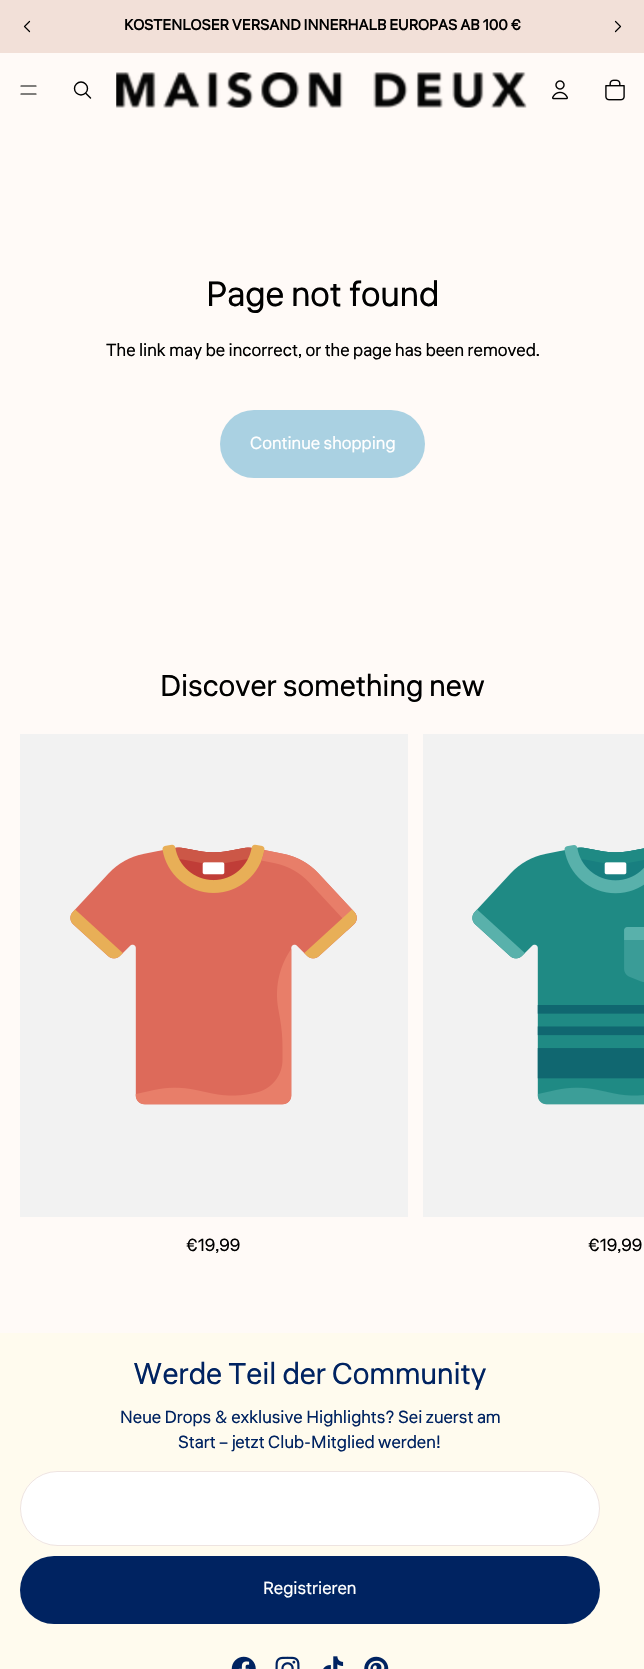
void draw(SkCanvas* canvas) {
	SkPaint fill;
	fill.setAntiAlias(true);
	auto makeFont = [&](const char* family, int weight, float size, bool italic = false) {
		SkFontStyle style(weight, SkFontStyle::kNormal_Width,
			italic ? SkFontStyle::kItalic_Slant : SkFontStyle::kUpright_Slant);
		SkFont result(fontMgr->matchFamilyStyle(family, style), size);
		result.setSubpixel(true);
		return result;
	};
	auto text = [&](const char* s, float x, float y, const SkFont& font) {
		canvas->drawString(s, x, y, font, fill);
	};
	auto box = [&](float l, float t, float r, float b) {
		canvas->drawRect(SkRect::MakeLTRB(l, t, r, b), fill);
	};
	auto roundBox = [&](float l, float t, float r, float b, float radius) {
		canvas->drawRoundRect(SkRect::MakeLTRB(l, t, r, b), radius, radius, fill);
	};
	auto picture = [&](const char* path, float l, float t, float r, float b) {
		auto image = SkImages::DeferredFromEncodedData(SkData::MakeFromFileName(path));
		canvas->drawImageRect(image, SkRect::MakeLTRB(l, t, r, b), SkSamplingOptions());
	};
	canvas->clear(0xFFFFFAF7);
	fill.setColor(0xFFF2E0D8);
	box(0, 0, 644, 53);
	fill.setStyle(SkPaint::kStroke_Style);
	fill.setStrokeWidth(1.2f);
	fill.setStrokeCap(SkPaint::kRound_Cap);
	fill.setStrokeJoin(SkPaint::kRound_Join);
	fill.setColor(0xFF000000);
	canvas->drawPath(SkPathBuilder().moveTo(29.5f, 21.5f).lineTo(24.5f, 26.5f).lineTo(29.5f, 31.5f).detach(), fill);
	canvas->drawPath(SkPathBuilder().moveTo(615.5f, 21.5f).lineTo(620.5f, 26.5f).lineTo(615.5f, 31.5f).detach(), fill);
	fill.setStrokeJoin(SkPaint::kMiter_Join);
	canvas->drawPath(SkPathBuilder().moveTo(21, 86).lineTo(36, 86).moveTo(21, 94).lineTo(36, 94).detach(), fill);
	fill.setStrokeWidth(1.4f);
	fill.setStrokeCap(SkPaint::kButt_Cap);
	canvas->drawCircle(81, 88.5f, 6.5f, fill);
	fill.setStrokeCap(SkPaint::kRound_Cap);
	fill.setStrokeJoin(SkPaint::kRound_Join);
	canvas->drawPath(SkPathBuilder().moveTo(86, 93.5f).lineTo(90.5f, 98).detach(), fill);
	picture("image0.png", 116, 72, 527, 108);
	picture("image1.png", 552, 80, 568, 100);
	picture("image2.png", 605, 79, 625, 101);
	fill.setStyle(SkPaint::kFill_Style);
	fill.setColor(0xFFAAD1E2);
	roundBox(220, 410, 425, 478, 34);
	picture("image3.png", 20, 734, 408, 1217);
	picture("image4.png", 423, 734, 644, 1217);
	fill.setColor(0xFFFFFBEE);
	box(0, 1333, 644, 1669);
	fill.setColor(0xFFFFFFFF);
	roundBox(20, 1471, 600, 1546, 37.5f);
	fill.setStyle(SkPaint::kStroke_Style);
	fill.setStrokeWidth(1);
	fill.setStrokeCap(SkPaint::kButt_Cap);
	fill.setStrokeJoin(SkPaint::kMiter_Join);
	fill.setColor(0x1F761E0B);
	canvas->drawRoundRect(SkRect::MakeLTRB(20.5f, 1471.5f, 599.5f, 1545.5f), 37, 37, fill);
	fill.setStyle(SkPaint::kFill_Style);
	fill.setColor(0xFF002361);
	roundBox(20, 1556, 600, 1624, 34);
	picture("image5.png", 231, 1656, 256, 1669);
	picture("image6.png", 275, 1656, 300, 1669);
	picture("image7.png", 323, 1656, 344, 1669);
	picture("image8.png", 364, 1656, 389, 1669);
	auto font1 = makeFont("Liter", 700, 15);
	fill.setColor(0xFF000000);
	text("KOSTENLOSER VERSAND INNERHALB EUROPAS AB 100 €", 124, 30, font1);
	auto font2 = makeFont("Liter", 400, 35);
	text("Page not found", 206, 306, font2);
	auto font3 = makeFont("Liter", 400, 17.5f);
	text("The link may be incorrect, or the page has been removed.", 106, 356, font3);
	fill.setColor(0xFFFFFFFF);
	text("Continue shopping", 250, 449, font3);
	auto font4 = makeFont("Liter", 400, 30);
	fill.setColor(0xFF000000);
	text("Discover something new", 160, 696, font4);
	text("€19,99", 186, 1251, font3);
	text("€19,99", 588, 1251, font3);
	fill.setColor(0xFF002361);
	text("Werde Teil der Community", 133, 1384, font4);
	text("Neue Drops & exklusive Highlights? Sei zuerst am", 120, 1423, font3);
	text("Start – jetzt Club-Mitglied werden!", 178, 1448, font3);
	fill.setColor(0xFFFFFFFF);
	text("Registrieren", 263, 1594, font3);
}
